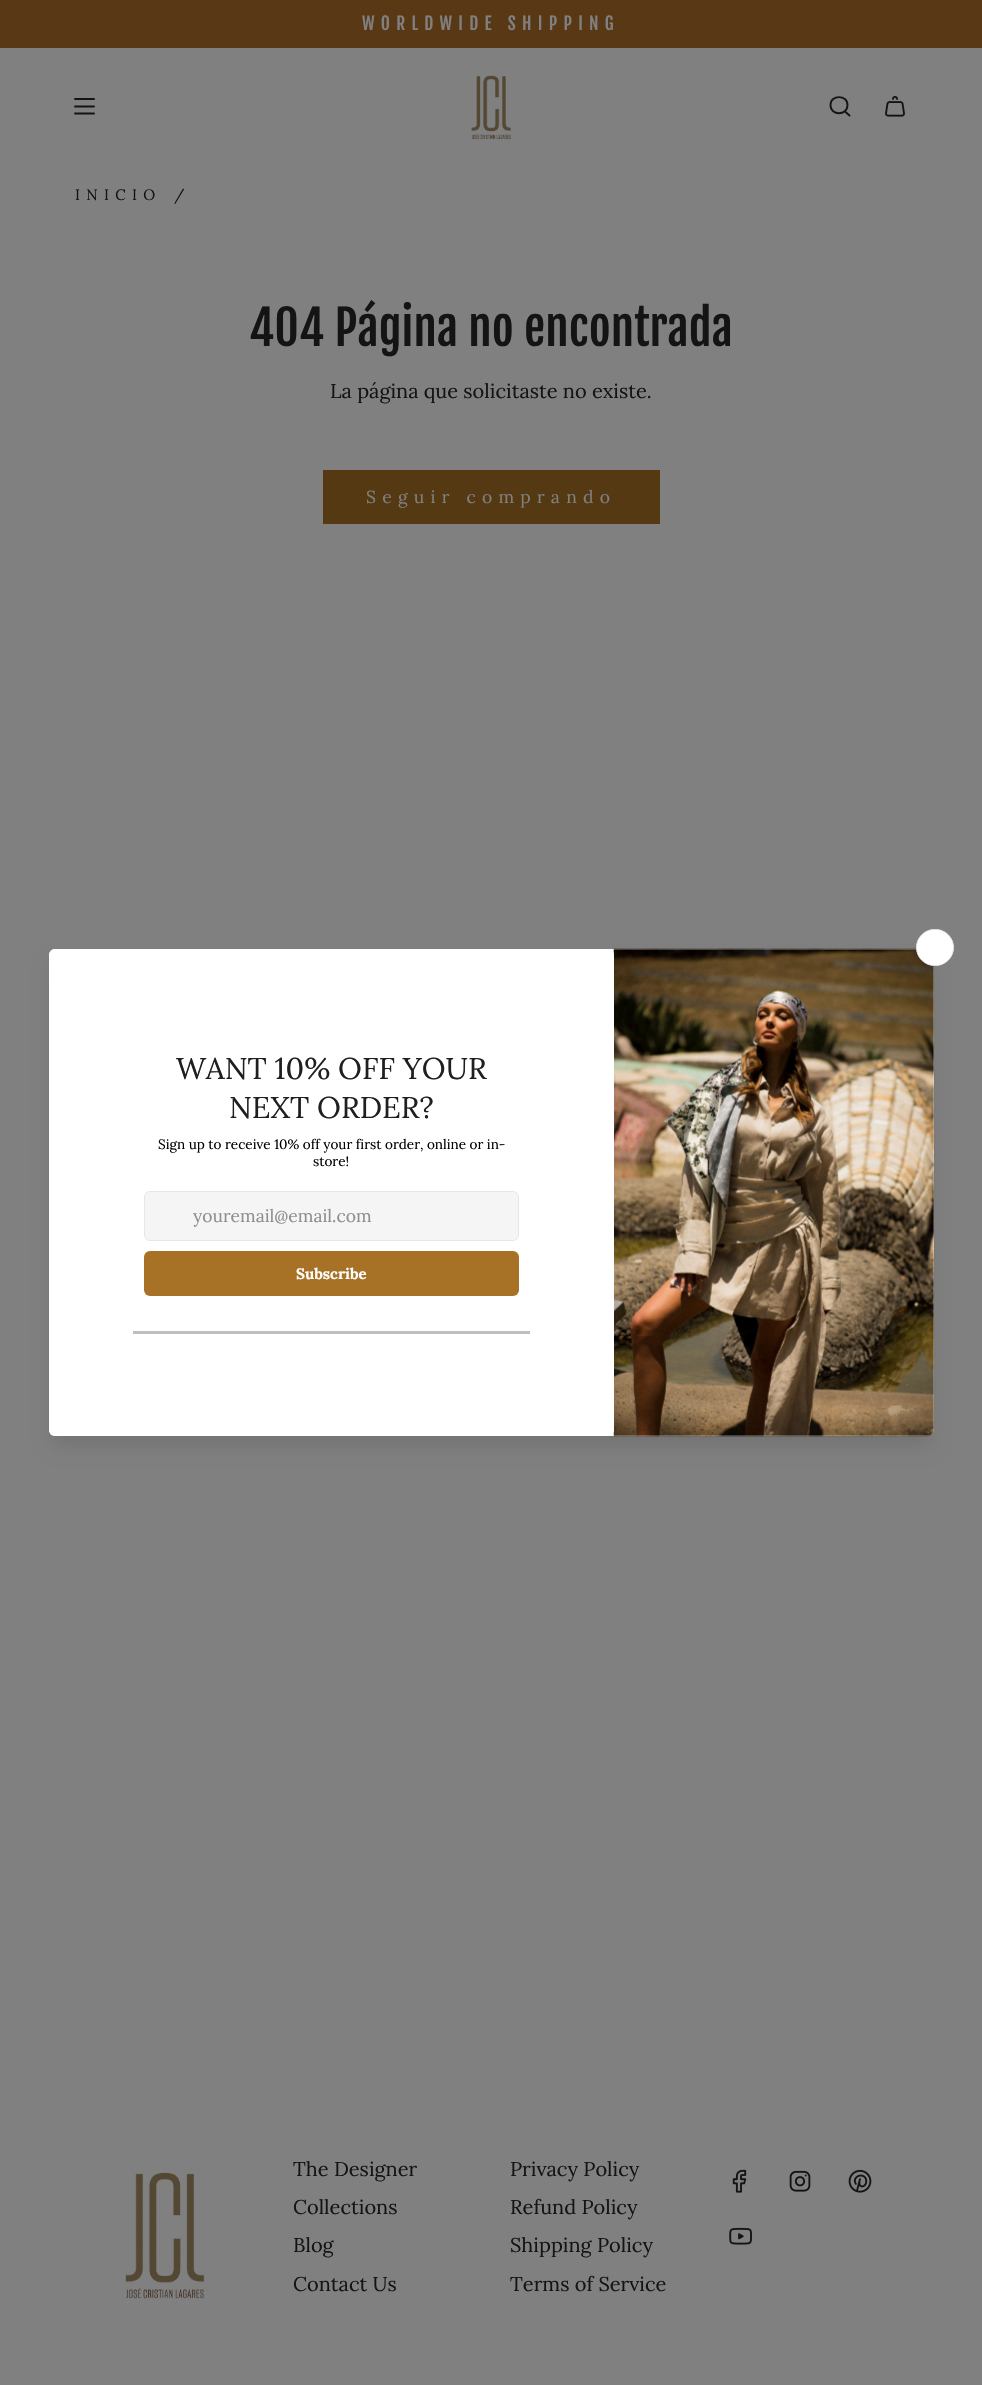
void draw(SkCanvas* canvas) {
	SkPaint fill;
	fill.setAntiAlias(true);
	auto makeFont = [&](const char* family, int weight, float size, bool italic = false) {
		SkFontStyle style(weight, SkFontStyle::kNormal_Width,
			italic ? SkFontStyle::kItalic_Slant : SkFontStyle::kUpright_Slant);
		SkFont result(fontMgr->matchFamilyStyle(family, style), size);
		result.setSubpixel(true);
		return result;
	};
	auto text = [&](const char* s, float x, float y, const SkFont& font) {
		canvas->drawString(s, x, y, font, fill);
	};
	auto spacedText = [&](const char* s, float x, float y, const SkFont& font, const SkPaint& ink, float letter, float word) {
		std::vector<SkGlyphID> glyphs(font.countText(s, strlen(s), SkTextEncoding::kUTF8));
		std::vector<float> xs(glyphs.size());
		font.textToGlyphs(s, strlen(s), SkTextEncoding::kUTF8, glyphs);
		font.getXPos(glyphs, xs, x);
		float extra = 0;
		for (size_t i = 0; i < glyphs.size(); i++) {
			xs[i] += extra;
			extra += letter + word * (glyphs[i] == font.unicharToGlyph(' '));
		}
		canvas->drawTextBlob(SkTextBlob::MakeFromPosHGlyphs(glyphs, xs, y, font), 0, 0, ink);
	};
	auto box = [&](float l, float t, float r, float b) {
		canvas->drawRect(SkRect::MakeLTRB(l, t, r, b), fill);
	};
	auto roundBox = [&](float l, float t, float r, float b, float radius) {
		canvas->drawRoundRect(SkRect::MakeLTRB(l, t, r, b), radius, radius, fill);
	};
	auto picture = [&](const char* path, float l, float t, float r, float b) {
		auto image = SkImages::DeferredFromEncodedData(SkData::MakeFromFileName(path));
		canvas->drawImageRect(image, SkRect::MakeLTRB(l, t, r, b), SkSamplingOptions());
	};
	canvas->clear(0xFF808080);
	fill.setColor(0xFF593816);
	box(0, 0, 982, 48);
	fill.setStyle(SkPaint::kStroke_Style);
	fill.setStrokeWidth(1.9f);
	fill.setStrokeCap(SkPaint::kRound_Cap);
	fill.setStrokeJoin(SkPaint::kRound_Join);
	fill.setColor(0xFF141415);
	canvas->drawPath(SkPathBuilder().moveTo(75, 99).lineTo(94, 99).moveTo(75, 106.5f).lineTo(94, 106.5f).moveTo(75, 113.5f).lineTo(94, 113.5f).detach(), fill);
	picture("image0.png", 471, 75, 511, 140);
	canvas->drawPath(SkPathBuilder().moveTo(845, 111.5f).lineTo(849.5f, 115.5f).moveTo(830.5f, 105).cubicTo(830.5f, 116, 847.5f, 116, 847.5f, 105).cubicTo(847.5f, 94.5f, 830.5f, 94.5f, 830.5f, 105).close().detach(), fill);
	picture("image1.png", 885, 96, 905, 117);
	fill.setStyle(SkPaint::kFill_Style);
	fill.setColor(0xFF543913);
	box(323, 470, 660, 524);
	fill.setColor(0x1A000000);
	fill.setMaskFilter(SkMaskFilter::MakeBlur(kNormal_SkBlurStyle, 9.5f));
	canvas->drawRoundRect(SkRect::MakeLTRB(53, 965, 930, 1445), 2.5f, 2.5f, fill);
	fill.setMaskFilter(nullptr);
	fill.setColor(0xFFFFFFFF);
	roundBox(49, 949, 934, 1436, 6);
	picture("image2.png", 613, 948, 934, 1437);
	canvas->drawRoundRect(SkRect::MakeLTRB(916.5f, 929.5f, 953.5f, 965.5f), 18, 18, fill);
	fill.setStyle(SkPaint::kStroke_Style);
	fill.setStrokeWidth(1);
	fill.setStrokeCap(SkPaint::kButt_Cap);
	fill.setStrokeJoin(SkPaint::kMiter_Join);
	fill.setColor(0xFFE2E8F0);
	canvas->drawRoundRect(SkRect::MakeLTRB(916.5f, 929.5f, 953.5f, 965.5f), 18, 18, fill);
	canvas->save();
	canvas->clipRect(SkRect::MakeLTRB(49, 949, 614, 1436));
	fill.setStyle(SkPaint::kFill_Style);
	fill.setColor(0x1F000000);
	fill.setMaskFilter(SkMaskFilter::MakeBlur(kNormal_SkBlurStyle, 12.5f));
	canvas->drawRoundRect(SkRect::MakeLTRB(53, 953, 610, 1433), 2.5f, 2.5f, fill);
	fill.setMaskFilter(nullptr);
	canvas->restore();
	fill.setColor(0xFFFFFFFF);
	roundBox(49, 949, 614, 1436, 6);
	fill.setColor(0xFFF5F5F5);
	canvas->drawRoundRect(SkRect::MakeLTRB(144.5f, 1191.5f, 518.5f, 1240.5f), 5.5f, 5.5f, fill);
	fill.setStyle(SkPaint::kStroke_Style);
	fill.setColor(0xFFE2E8F0);
	canvas->drawRoundRect(SkRect::MakeLTRB(144.5f, 1191.5f, 518.5f, 1240.5f), 5.5f, 5.5f, fill);
	fill.setStyle(SkPaint::kFill_Style);
	fill.setColor(0xFFA87226);
	roundBox(144, 1251, 519, 1296, 6);
	fill.setColor(0xFFBFBFBF);
	box(133, 1331, 530, 1334);
	picture("image3.png", 125, 2172, 205, 2299);
	picture("image4.png", 732, 2169, 747, 2193);
	picture("image5.png", 789, 2170, 811, 2192);
	picture("image6.png", 848, 2169, 872, 2193);
	picture("image7.png", 729, 2227, 752, 2245);
	auto font1 = makeFont("Fjalla One", 400, 17.5f);
	fill.setColor(0xFF808080);
	spacedText("WORLDWIDE SHIPPING", 362, 30, font1, fill, 6.25f, 0);
	auto font2 = makeFont("Lora", 400, 15);
	fill.setColor(0xFF141415);
	spacedText("INICIO", 75, 200, font2, fill, 6.25f, 0);
	text("/", 174, 200, font2);
	auto font3 = makeFont("Fjalla One", 400, 47.5f);
	text("404 Página no encontrada", 249, 346, font3);
	auto font4 = makeFont("Lora", 400, 20);
	text("La página que solicitaste no existe.", 330, 398, font4);
	auto font5 = makeFont("Lora", 400, 17.5f);
	fill.setColor(0xFF808080);
	spacedText("Seguir comprando", 366, 503, font5, fill, 6.25f, 0);
	auto font6 = makeFont("Lora", 400, 30);
	fill.setColor(0xFF1F1F1F);
	text("WANT 10% OFF YOUR", 176, 1079, font6);
	text("NEXT ORDER?", 229, 1118, font6);
	auto font7 = makeFont("Lora", 400, 13.5f);
	fill.setColor(0xFF000000);
	text("Sign up to receive 10% off your first order, online or in-", 158, 1149, font7);
	text("store!", 313, 1166, font7);
	fill.setColor(0xFF8E8E8E);
	text("youremail@email.com", 193, 1222, font5);
	auto font8 = makeFont("Lora", 700, 15);
	fill.setColor(0xFFFFFFFF);
	text("Subscribe", 296, 1279, font8);
	fill.setColor(0xFF141415);
	text("The Designer", 293, 2176, font4);
	text("Collections", 293, 2214, font4);
	text("Blog", 293, 2252, font4);
	text("Contact Us", 293, 2291, font4);
	text("Privacy Policy", 510, 2176, font4);
	text("Refund Policy", 510, 2214, font4);
	text("Shipping Policy", 510, 2252, font4);
	text("Terms of Service", 510, 2291, font4);
}
